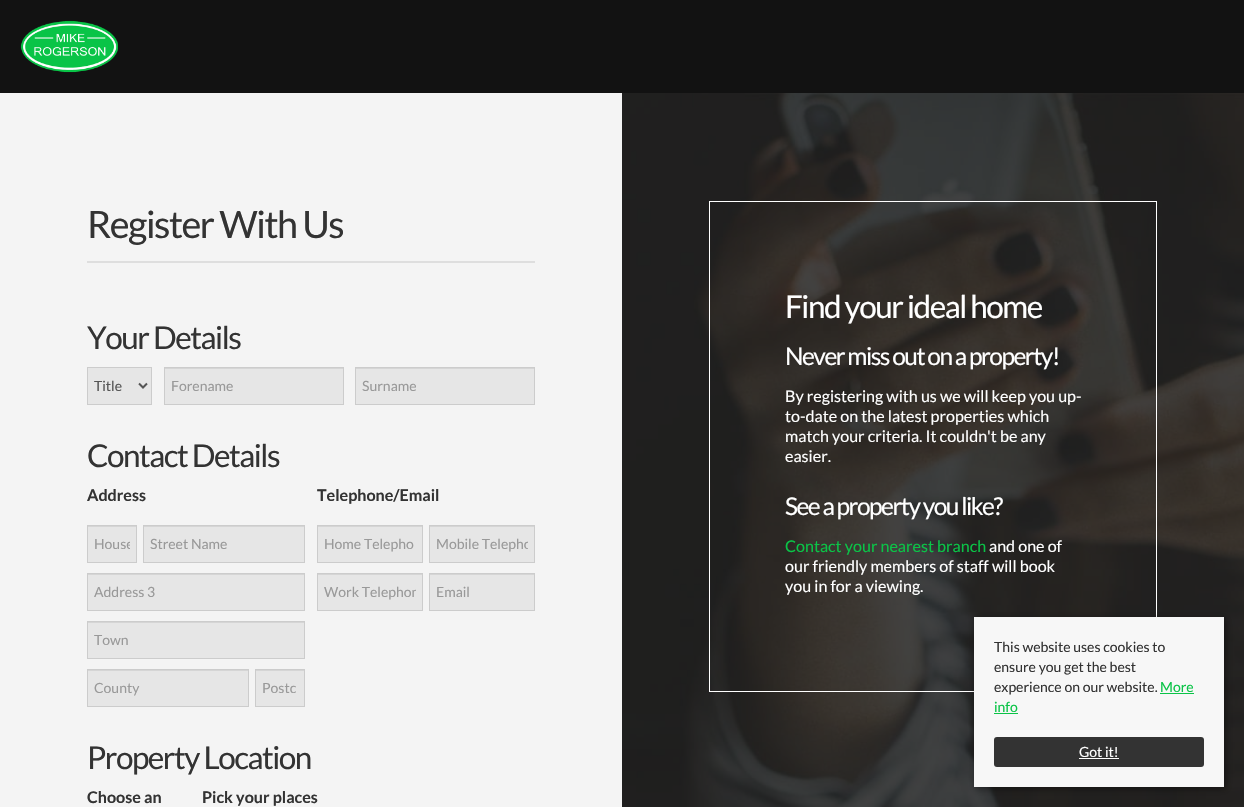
void draw(SkCanvas* canvas) {
	SkPaint fill;
	fill.setAntiAlias(true);
	auto makeFont = [&](const char* family, int weight, float size, bool italic = false) {
		SkFontStyle style(weight, SkFontStyle::kNormal_Width,
			italic ? SkFontStyle::kItalic_Slant : SkFontStyle::kUpright_Slant);
		SkFont result(fontMgr->matchFamilyStyle(family, style), size);
		result.setSubpixel(true);
		return result;
	};
	auto text = [&](const char* s, float x, float y, const SkFont& font) {
		canvas->drawString(s, x, y, font, fill);
	};
	auto spacedText = [&](const char* s, float x, float y, const SkFont& font, const SkPaint& ink, float letter, float word) {
		std::vector<SkGlyphID> glyphs(font.countText(s, strlen(s), SkTextEncoding::kUTF8));
		std::vector<float> xs(glyphs.size());
		font.textToGlyphs(s, strlen(s), SkTextEncoding::kUTF8, glyphs);
		font.getXPos(glyphs, xs, x);
		float extra = 0;
		for (size_t i = 0; i < glyphs.size(); i++) {
			xs[i] += extra;
			extra += letter + word * (glyphs[i] == font.unicharToGlyph(' '));
		}
		canvas->drawTextBlob(SkTextBlob::MakeFromPosHGlyphs(glyphs, xs, y, font), 0, 0, ink);
	};
	auto box = [&](float l, float t, float r, float b) {
		canvas->drawRect(SkRect::MakeLTRB(l, t, r, b), fill);
	};
	auto roundBox = [&](float l, float t, float r, float b, float radius) {
		canvas->drawRoundRect(SkRect::MakeLTRB(l, t, r, b), radius, radius, fill);
	};
	auto picture = [&](const char* path, float l, float t, float r, float b) {
		auto image = SkImages::DeferredFromEncodedData(SkData::MakeFromFileName(path));
		canvas->drawImageRect(image, SkRect::MakeLTRB(l, t, r, b), SkSamplingOptions());
	};
	canvas->clear(0xFF121212);
	picture("image0.png", 20, 20, 118, 73);
	fill.setColor(0xFFF4F4F4);
	box(0, 93, 622, 807);
	fill.setColor(0xFFDEDEDE);
	box(87, 261, 535, 263);
	fill.setColor(0xFFE6E6E6);
	canvas->drawRect(SkRect::MakeLTRB(87.5f, 367.5f, 151.5f, 404.5f), fill);
	fill.setStyle(SkPaint::kStroke_Style);
	fill.setStrokeWidth(1);
	fill.setColor(0xFFCCCCCC);
	canvas->drawRect(SkRect::MakeLTRB(87.5f, 367.5f, 151.5f, 404.5f), fill);
	fill.setStrokeWidth(2);
	fill.setColor(0xFF555555);
	canvas->drawPath(SkPathBuilder().moveTo(139, 383.5f).lineTo(143, 387.5f).lineTo(147, 383.5f).detach(), fill);
	fill.setStyle(SkPaint::kFill_Style);
	fill.setColor(0xFFE6E6E6);
	box(165, 369, 343, 404);
	fill.setColor(0xFFD5D5D5);
	box(165, 368, 343, 369);
	fill.setStyle(SkPaint::kStroke_Style);
	fill.setStrokeWidth(1);
	fill.setColor(0xFFCCCCCC);
	canvas->drawRect(SkRect::MakeLTRB(164.5f, 367.5f, 343.5f, 404.5f), fill);
	fill.setStyle(SkPaint::kFill_Style);
	fill.setColor(0xFFE6E6E6);
	box(356, 369, 534, 404);
	fill.setColor(0xFFD5D5D5);
	box(356, 368, 534, 369);
	fill.setStyle(SkPaint::kStroke_Style);
	fill.setColor(0xFFCCCCCC);
	canvas->drawRect(SkRect::MakeLTRB(355.5f, 367.5f, 534.5f, 404.5f), fill);
	fill.setStyle(SkPaint::kFill_Style);
	fill.setColor(0xFFE6E6E6);
	box(88, 527, 136, 562);
	fill.setColor(0xFFD5D5D5);
	box(88, 526, 136, 527);
	fill.setStyle(SkPaint::kStroke_Style);
	fill.setColor(0xFFCCCCCC);
	canvas->drawRect(SkRect::MakeLTRB(87.5f, 525.5f, 136.5f, 562.5f), fill);
	fill.setStyle(SkPaint::kFill_Style);
	fill.setColor(0xFFE6E6E6);
	box(144, 527, 304, 562);
	fill.setColor(0xFFD5D5D5);
	box(144, 526, 304, 527);
	fill.setStyle(SkPaint::kStroke_Style);
	fill.setColor(0xFFCCCCCC);
	canvas->drawRect(SkRect::MakeLTRB(143.5f, 525.5f, 304.5f, 562.5f), fill);
	fill.setStyle(SkPaint::kFill_Style);
	fill.setColor(0xFFE6E6E6);
	box(88, 575, 304, 610);
	fill.setColor(0xFFD5D5D5);
	box(88, 574, 304, 575);
	fill.setStyle(SkPaint::kStroke_Style);
	fill.setColor(0xFFCCCCCC);
	canvas->drawRect(SkRect::MakeLTRB(87.5f, 573.5f, 304.5f, 610.5f), fill);
	fill.setStyle(SkPaint::kFill_Style);
	fill.setColor(0xFFE6E6E6);
	box(88, 623, 304, 658);
	fill.setColor(0xFFD5D5D5);
	box(88, 622, 304, 623);
	fill.setStyle(SkPaint::kStroke_Style);
	fill.setColor(0xFFCCCCCC);
	canvas->drawRect(SkRect::MakeLTRB(87.5f, 621.5f, 304.5f, 658.5f), fill);
	fill.setStyle(SkPaint::kFill_Style);
	fill.setColor(0xFFE6E6E6);
	box(88, 671, 248, 706);
	fill.setColor(0xFFD5D5D5);
	box(88, 670, 248, 671);
	fill.setStyle(SkPaint::kStroke_Style);
	fill.setColor(0xFFCCCCCC);
	canvas->drawRect(SkRect::MakeLTRB(87.5f, 669.5f, 248.5f, 706.5f), fill);
	fill.setStyle(SkPaint::kFill_Style);
	fill.setColor(0xFFE6E6E6);
	box(256, 671, 304, 706);
	fill.setColor(0xFFD5D5D5);
	box(256, 670, 304, 671);
	fill.setStyle(SkPaint::kStroke_Style);
	fill.setColor(0xFFCCCCCC);
	canvas->drawRect(SkRect::MakeLTRB(255.5f, 669.5f, 304.5f, 706.5f), fill);
	fill.setStyle(SkPaint::kFill_Style);
	fill.setColor(0xFFE6E6E6);
	box(318, 527, 422, 562);
	fill.setColor(0xFFD5D5D5);
	box(318, 526, 422, 527);
	fill.setStyle(SkPaint::kStroke_Style);
	fill.setColor(0xFFCCCCCC);
	canvas->drawRect(SkRect::MakeLTRB(317.5f, 525.5f, 422.5f, 562.5f), fill);
	fill.setStyle(SkPaint::kFill_Style);
	fill.setColor(0xFFE6E6E6);
	box(430, 527, 534, 562);
	fill.setColor(0xFFD5D5D5);
	box(430, 526, 534, 527);
	fill.setStyle(SkPaint::kStroke_Style);
	fill.setColor(0xFFCCCCCC);
	canvas->drawRect(SkRect::MakeLTRB(429.5f, 525.5f, 534.5f, 562.5f), fill);
	fill.setStyle(SkPaint::kFill_Style);
	fill.setColor(0xFFE6E6E6);
	box(318, 575, 422, 610);
	fill.setColor(0xFFD5D5D5);
	box(318, 574, 422, 575);
	fill.setStyle(SkPaint::kStroke_Style);
	fill.setColor(0xFFCCCCCC);
	canvas->drawRect(SkRect::MakeLTRB(317.5f, 573.5f, 422.5f, 610.5f), fill);
	fill.setStyle(SkPaint::kFill_Style);
	fill.setColor(0xFFE6E6E6);
	box(430, 575, 534, 610);
	fill.setColor(0xFFD5D5D5);
	box(430, 574, 534, 575);
	fill.setStyle(SkPaint::kStroke_Style);
	fill.setColor(0xFFCCCCCC);
	canvas->drawRect(SkRect::MakeLTRB(429.5f, 573.5f, 534.5f, 610.5f), fill);
	fill.setStyle(SkPaint::kFill_Style);
	fill.setColor(0xFF232323);
	box(622, 93, 1244, 807);
	picture("image1.png", 622, 93, 1244, 807);
	fill.setStyle(SkPaint::kStroke_Style);
	fill.setColor(0xFFFFFFFF);
	canvas->drawRect(SkRect::MakeLTRB(709.5f, 201.5f, 1156.5f, 691.5f), fill);
	fill.setStyle(SkPaint::kFill_Style);
	fill.setColor(0x66000000);
	fill.setMaskFilter(SkMaskFilter::MakeBlur(kNormal_SkBlurStyle, 3.5f));
	canvas->drawRect(SkRect::MakeLTRB(976, 619, 1226, 789), fill);
	fill.setMaskFilter(nullptr);
	fill.setColor(0xFFF7F7F7);
	box(974, 617, 1224, 787);
	fill.setColor(0xFF0AC447);
	box(1160, 693, 1194, 694);
	box(994, 713, 1018, 714);
	fill.setColor(0xFF333333);
	roundBox(994, 737, 1204, 767, 3);
	fill.setColor(0xFFFFFFFF);
	box(1079, 758, 1119, 759);
	auto font1 = makeFont("Lato", 400, 37.75f);
	fill.setColor(0xFF333333);
	spacedText("Register With Us", 87, 238, font1, fill, -1.5f, 0);
	auto font2 = makeFont("Lato", 400, 31.5f);
	spacedText("Your Details", 87, 349, font2, fill, -1.5f, 0);
	auto font3 = makeFont("Lato", 400, 14);
	fill.setColor(0xFF555555);
	text("Title", 94, 391, font3);
	fill.setColor(0xFF999999);
	text("Forename", 171, 391, font3);
	text("Surname", 362, 391, font3);
	fill.setColor(0xFF333333);
	spacedText("Contact Details", 87, 467, font2, fill, -1.5f, 0);
	auto font4 = makeFont("Lato", 700, 16.1f);
	text("Address", 87, 501, font4);
	canvas->save();
	canvas->clipRect(SkRect::MakeLTRB(94, 535, 130, 552));
	fill.setColor(0xFF999999);
	text("House", 94, 549, font3);
	canvas->restore();
	text("Street Name", 150, 549, font3);
	text("Address 3", 94, 597, font3);
	text("Town", 94, 645, font3);
	text("County", 94, 693, font3);
	text("Postc", 262, 693, font3);
	fill.setColor(0xFF333333);
	text("Telephone/Email", 317, 501, font4);
	fill.setColor(0xFF999999);
	text("Home Telepho", 324, 549, font3);
	canvas->save();
	canvas->clipRect(SkRect::MakeLTRB(436, 535, 528, 552));
	text("Mobile Telepho", 436, 549, font3);
	canvas->restore();
	canvas->save();
	canvas->clipRect(SkRect::MakeLTRB(324, 583, 416, 600));
	text("Work Telephon", 324, 597, font3);
	canvas->restore();
	text("Email", 436, 597, font3);
	fill.setColor(0xFF333333);
	spacedText("Property Location", 87, 769, font2, fill, -1.5f, 0);
	text("Choose an", 87, 803, font4);
	text("Pick your places", 202, 803, font4);
	fill.setColor(0xFFFFFFFF);
	spacedText("Find your ideal home", 785, 318, font2, fill, -1.5f, 0);
	auto font5 = makeFont("Lato", 400, 24.5f);
	spacedText("Never miss out on a property!", 785, 365, font5, fill, -1.5f, 0);
	auto font6 = makeFont("Lato", 400, 16.1f);
	text("By registering with us we will keep you up-", 785, 402, font6);
	text("to-date on the latest properties which", 785, 422, font6);
	text("match your criteria. It couldn't be any", 785, 442, font6);
	text("easier.", 785, 462, font6);
	spacedText("See a property you like?", 785, 515, font5, fill, -1.5f, 0);
	fill.setColor(0xFF0AC447);
	text("Contact your nearest branch", 785, 552, font6);
	fill.setColor(0xFFFFFFFF);
	text("and one of", 989, 552, font6);
	text("our friendly members of staff will book", 785, 572, font6);
	text("you in for a viewing.", 785, 592, font6);
	fill.setColor(0xFF333333);
	text("This website uses cookies to", 994, 652, font3);
	text("ensure you get the best", 994, 672, font3);
	text("experience on our website.", 994, 692, font3);
	fill.setColor(0xFF0AC447);
	text("More", 1160, 692, font3);
	text("info", 994, 712, font3);
	fill.setColor(0xFFFFFFFF);
	text("Got it!", 1079, 757, font3);
}
